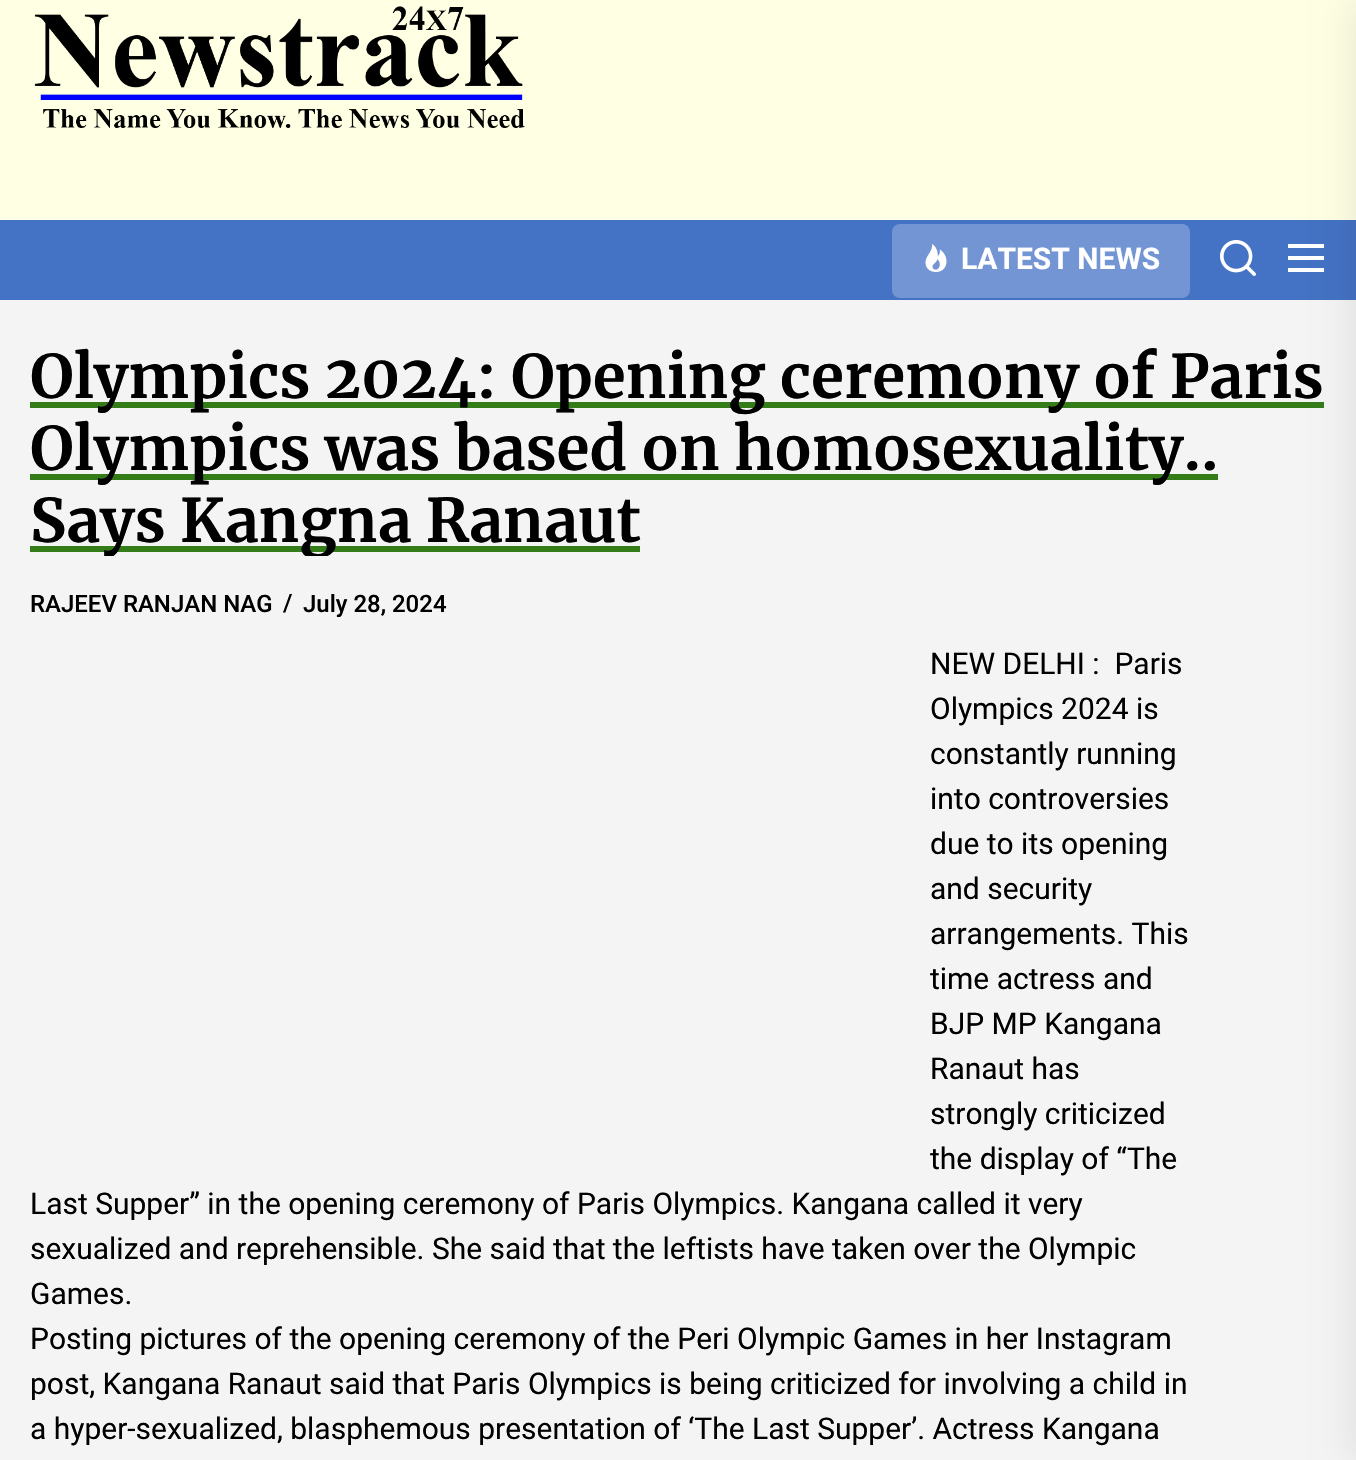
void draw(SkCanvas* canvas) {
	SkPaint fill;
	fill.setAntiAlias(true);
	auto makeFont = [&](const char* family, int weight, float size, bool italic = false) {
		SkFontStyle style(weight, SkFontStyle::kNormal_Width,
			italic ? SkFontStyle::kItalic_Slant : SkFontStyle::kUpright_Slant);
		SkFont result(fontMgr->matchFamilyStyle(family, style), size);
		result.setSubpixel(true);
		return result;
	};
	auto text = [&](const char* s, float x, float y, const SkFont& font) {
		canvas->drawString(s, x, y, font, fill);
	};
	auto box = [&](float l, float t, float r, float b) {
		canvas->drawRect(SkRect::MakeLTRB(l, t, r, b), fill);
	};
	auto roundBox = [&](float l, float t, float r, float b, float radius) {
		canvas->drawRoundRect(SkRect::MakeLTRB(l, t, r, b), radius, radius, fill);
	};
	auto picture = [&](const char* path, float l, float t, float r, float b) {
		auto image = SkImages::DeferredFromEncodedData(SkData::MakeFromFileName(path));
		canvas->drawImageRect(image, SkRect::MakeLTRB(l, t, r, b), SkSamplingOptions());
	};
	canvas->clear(0xFFF4F4F4);
	fill.setColor(0xFFFFFFE4);
	box(0, 0, 1356, 220);
	picture("image0.png", 34, 6, 525, 128);
	fill.setColor(0xFF4472C4);
	box(0, 220, 1356, 300);
	fill.setColor(0xFF7395D3);
	roundBox(892, 224, 1190, 298, 8);
	picture("image1.png", 925, 244, 947, 272);
	picture("image2.png", 1220, 240, 1256, 276);
	fill.setColor(0xFFFFFFFF);
	canvas->drawPath(SkPathBuilder().moveTo(1288, 244).lineTo(1288, 248).lineTo(1324, 248).lineTo(1324, 244).close().moveTo(1288, 260).lineTo(1324, 260).lineTo(1324, 256).lineTo(1288, 256).close().moveTo(1288, 272).lineTo(1324, 272).lineTo(1324, 268).lineTo(1288, 268).close().detach(), fill);
	fill.setColor(0xFF347C17);
	box(30, 402, 1324, 408);
	fill.setColor(0x1A000000);
	fill.setMaskFilter(SkMaskFilter::MakeBlur(kNormal_SkBlurStyle, 20));
	canvas->drawRect(SkRect::MakeLTRB(1356, 0, 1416, 1460), fill);
	fill.setMaskFilter(nullptr);
	fill.setColor(0xFF347C17);
	box(30, 474, 1218, 480);
	box(30, 546, 640, 552);
	auto font1 = makeFont("Roboto", 700, 30);
	fill.setColor(0xFFFFFFFF);
	text("LATEST NEWS", 961, 269, font1);
	auto font2 = makeFont("Merriweather", 700, 60);
	fill.setColor(0xFF000000);
	text("Olympics 2024: Opening ceremony of Paris", 30, 398, font2);
	text("Olympics was based on homosexuality..", 30, 470, font2);
	canvas->save();
	canvas->clipRect(SkRect::MakeLTRB(30, 340, 1326, 556));
	text("Says Kangna Ranaut", 30, 542, font2);
	canvas->restore();
	auto font3 = makeFont("Roboto", 500, 24);
	text("RAJEEV RANJAN NAG", 30, 612, font3);
	text("/", 283, 611, font3);
	text("July 28, 2024", 303, 612, font3);
	auto font4 = makeFont("Roboto", 400, 30);
	text("NEW DELHI :  Paris", 930, 674, font4);
	text("Olympics 2024 is", 930, 719, font4);
	text("constantly running", 930, 764, font4);
	text("into controversies", 930, 809, font4);
	text("due to its opening", 930, 854, font4);
	text("and security", 930, 899, font4);
	text("arrangements. This", 930, 944, font4);
	text("time actress and", 930, 989, font4);
	text("BJP MP Kangana", 930, 1034, font4);
	text("Ranaut has", 930, 1079, font4);
	text("strongly criticized", 930, 1124, font4);
	text("the display of “The", 930, 1169, font4);
	text("Last Supper” in the opening ceremony of Paris Olympics. Kangana called it very", 30, 1214, font4);
	text("sexualized and reprehensible. She said that the leftists have taken over the Olympic", 30, 1259, font4);
	text("Games.", 30, 1304, font4);
	text("Posting pictures of the opening ceremony of the Peri Olympic Games in her Instagram", 30, 1349, font4);
	text("post, Kangana Ranaut said that Paris Olympics is being criticized for involving a child in", 30, 1394, font4);
	text("a hyper-sexualized, blasphemous presentation of ‘The Last Supper’. Actress Kangana", 30, 1439, font4);
}
